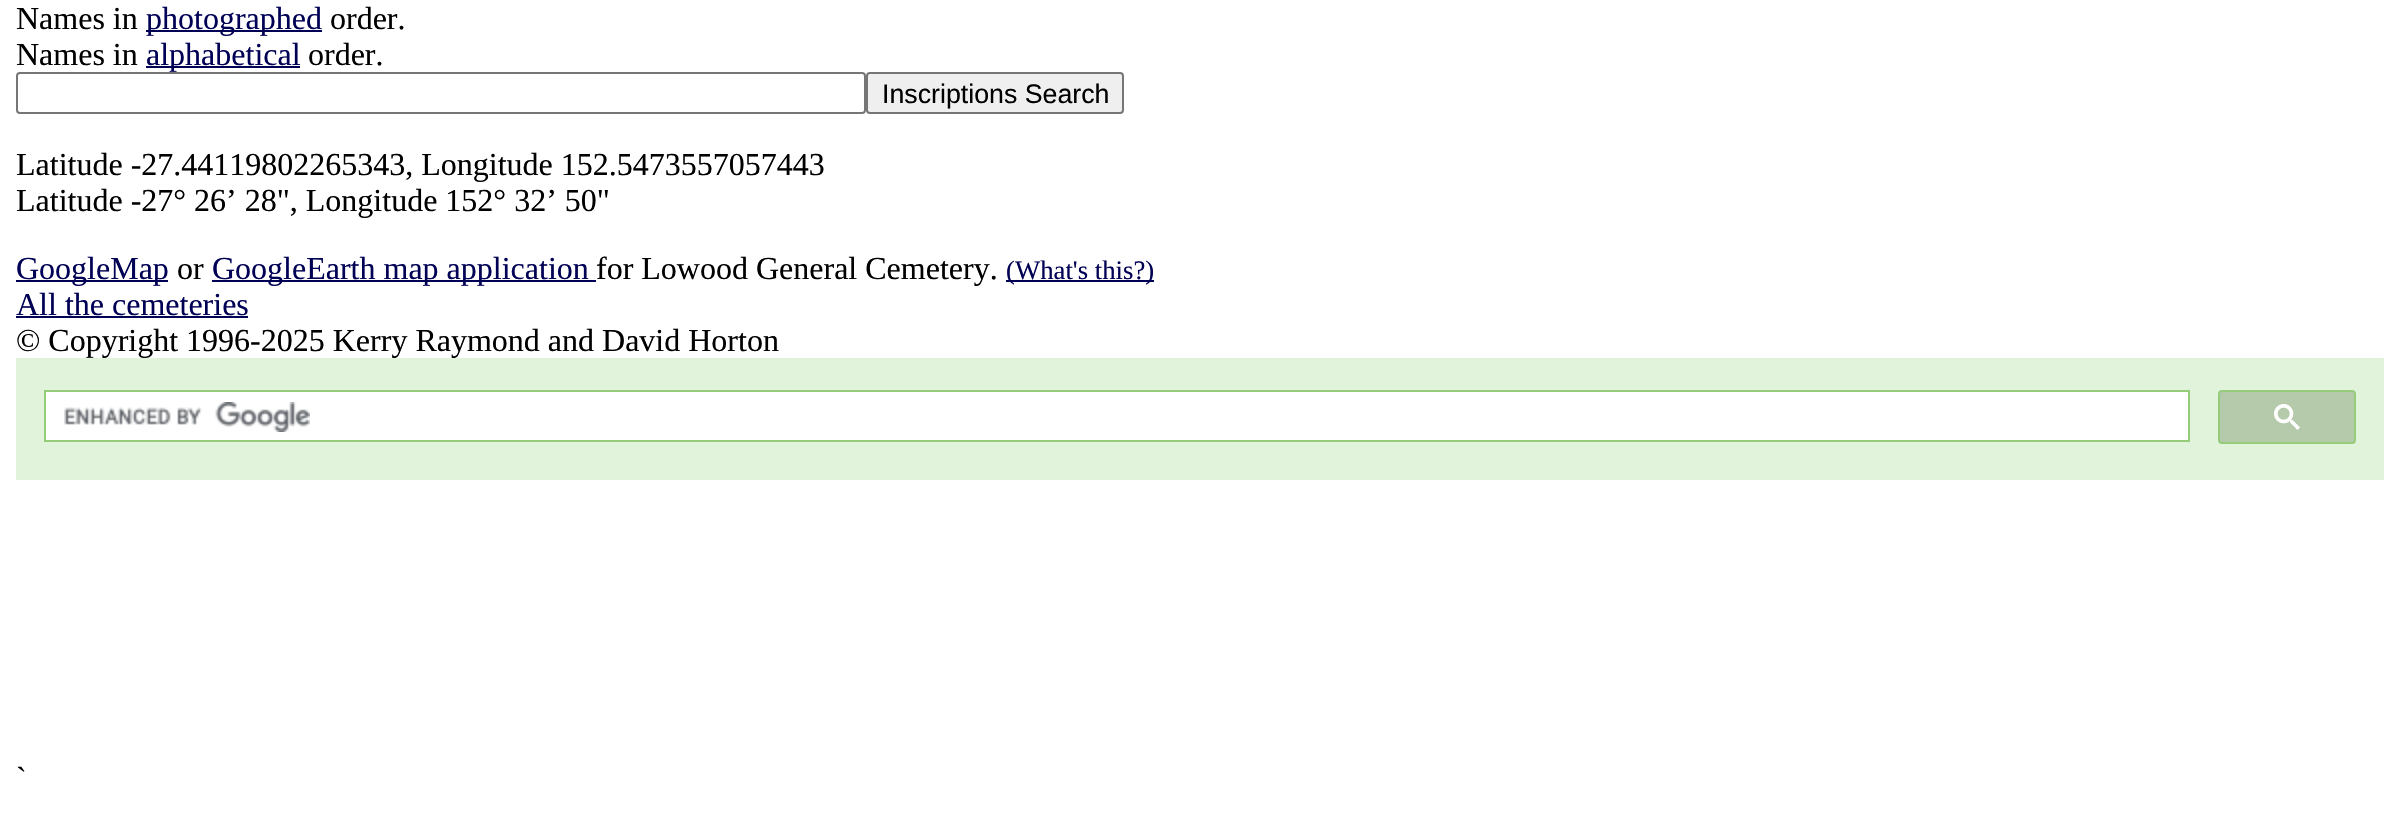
void draw(SkCanvas* canvas) {
	SkPaint fill;
	fill.setAntiAlias(true);
	auto makeFont = [&](const char* family, int weight, float size, bool italic = false) {
		SkFontStyle style(weight, SkFontStyle::kNormal_Width,
			italic ? SkFontStyle::kItalic_Slant : SkFontStyle::kUpright_Slant);
		SkFont result(fontMgr->matchFamilyStyle(family, style), size);
		result.setSubpixel(true);
		return result;
	};
	auto text = [&](const char* s, float x, float y, const SkFont& font) {
		canvas->drawString(s, x, y, font, fill);
	};
	auto box = [&](float l, float t, float r, float b) {
		canvas->drawRect(SkRect::MakeLTRB(l, t, r, b), fill);
	};
	auto picture = [&](const char* path, float l, float t, float r, float b) {
		auto image = SkImages::DeferredFromEncodedData(SkData::MakeFromFileName(path));
		canvas->drawImageRect(image, SkRect::MakeLTRB(l, t, r, b), SkSamplingOptions());
	};
	canvas->clear(0xFFFFFFFF);
	fill.setColor(0xFF000055);
	box(146, 30, 322, 32);
	box(146, 66, 300, 68);
	fill.setStyle(SkPaint::kStroke_Style);
	fill.setStrokeWidth(2);
	fill.setColor(0xFF767676);
	canvas->drawRoundRect(SkRect::MakeLTRB(17, 73, 865, 113), 3, 3, fill);
	fill.setStyle(SkPaint::kFill_Style);
	fill.setColor(0xFFEFEFEF);
	canvas->drawRoundRect(SkRect::MakeLTRB(867, 73, 1123, 113), 3, 3, fill);
	fill.setStyle(SkPaint::kStroke_Style);
	fill.setColor(0xFF767676);
	canvas->drawRoundRect(SkRect::MakeLTRB(867, 73, 1123, 113), 3, 3, fill);
	fill.setStyle(SkPaint::kFill_Style);
	fill.setColor(0xFF000055);
	box(16, 280, 168, 282);
	box(212, 280, 596, 282);
	box(1006, 280, 1154, 282);
	box(16, 316, 248, 318);
	fill.setColor(0xFFE1F3DA);
	box(16, 358, 2384, 480);
	fill.setColor(0xFFFFFFFF);
	canvas->drawRect(SkRect::MakeLTRB(45, 391, 2189, 441), fill);
	fill.setStyle(SkPaint::kStroke_Style);
	fill.setColor(0xFF94CC7A);
	canvas->drawRect(SkRect::MakeLTRB(45, 391, 2189, 441), fill);
	picture("image0.png", 64, 402, 310, 432);
	fill.setStyle(SkPaint::kFill_Style);
	fill.setColor(0xFFB5C9AB);
	canvas->drawRoundRect(SkRect::MakeLTRB(2219, 391, 2355, 443), 3, 3, fill);
	fill.setStyle(SkPaint::kStroke_Style);
	fill.setColor(0xFF94CC7A);
	canvas->drawRoundRect(SkRect::MakeLTRB(2219, 391, 2355, 443), 3, 3, fill);
	picture("image1.png", 2274, 404, 2300, 430);
	auto font1 = makeFont("Liberation Serif", 400, 32);
	fill.setStyle(SkPaint::kFill_Style);
	fill.setColor(0xFF000000);
	text("Names in", 16, 29, font1);
	fill.setColor(0xFF000055);
	text("photographed", 146, 29, font1);
	fill.setColor(0xFF000000);
	text("order.", 330, 29, font1);
	text("Names in", 16, 65, font1);
	fill.setColor(0xFF000055);
	text("alphabetical", 146, 65, font1);
	fill.setColor(0xFF000000);
	text("order.", 308, 65, font1);
	auto font2 = makeFont("Liberation Sans", 400, 26.75f);
	text("Inscriptions Search", 882, 103, font2);
	text("Latitude -27.44119802265343, Longitude 152.5473557057443", 16, 175, font1);
	text("Latitude -27° 26’ 28\", Longitude 152° 32’ 50\"", 16, 211, font1);
	fill.setColor(0xFF000055);
	text("GoogleMap", 16, 279, font1);
	fill.setColor(0xFF000000);
	text("or", 177, 279, font1);
	fill.setColor(0xFF000055);
	text("GoogleEarth map application", 212, 279, font1);
	fill.setColor(0xFF000000);
	text("for Lowood General Cemetery.", 596, 279, font1);
	auto font3 = makeFont("Liberation Serif", 400, 26.75f);
	fill.setColor(0xFF000055);
	text("(What's this?)", 1006, 279, font3);
	text("All the cemeteries", 16, 315, font1);
	fill.setColor(0xFF000000);
	text("© Copyright 1996-2025 Kerry Raymond and David Horton", 16, 351, font1);
	text("`", 16, 789, font1);
}
